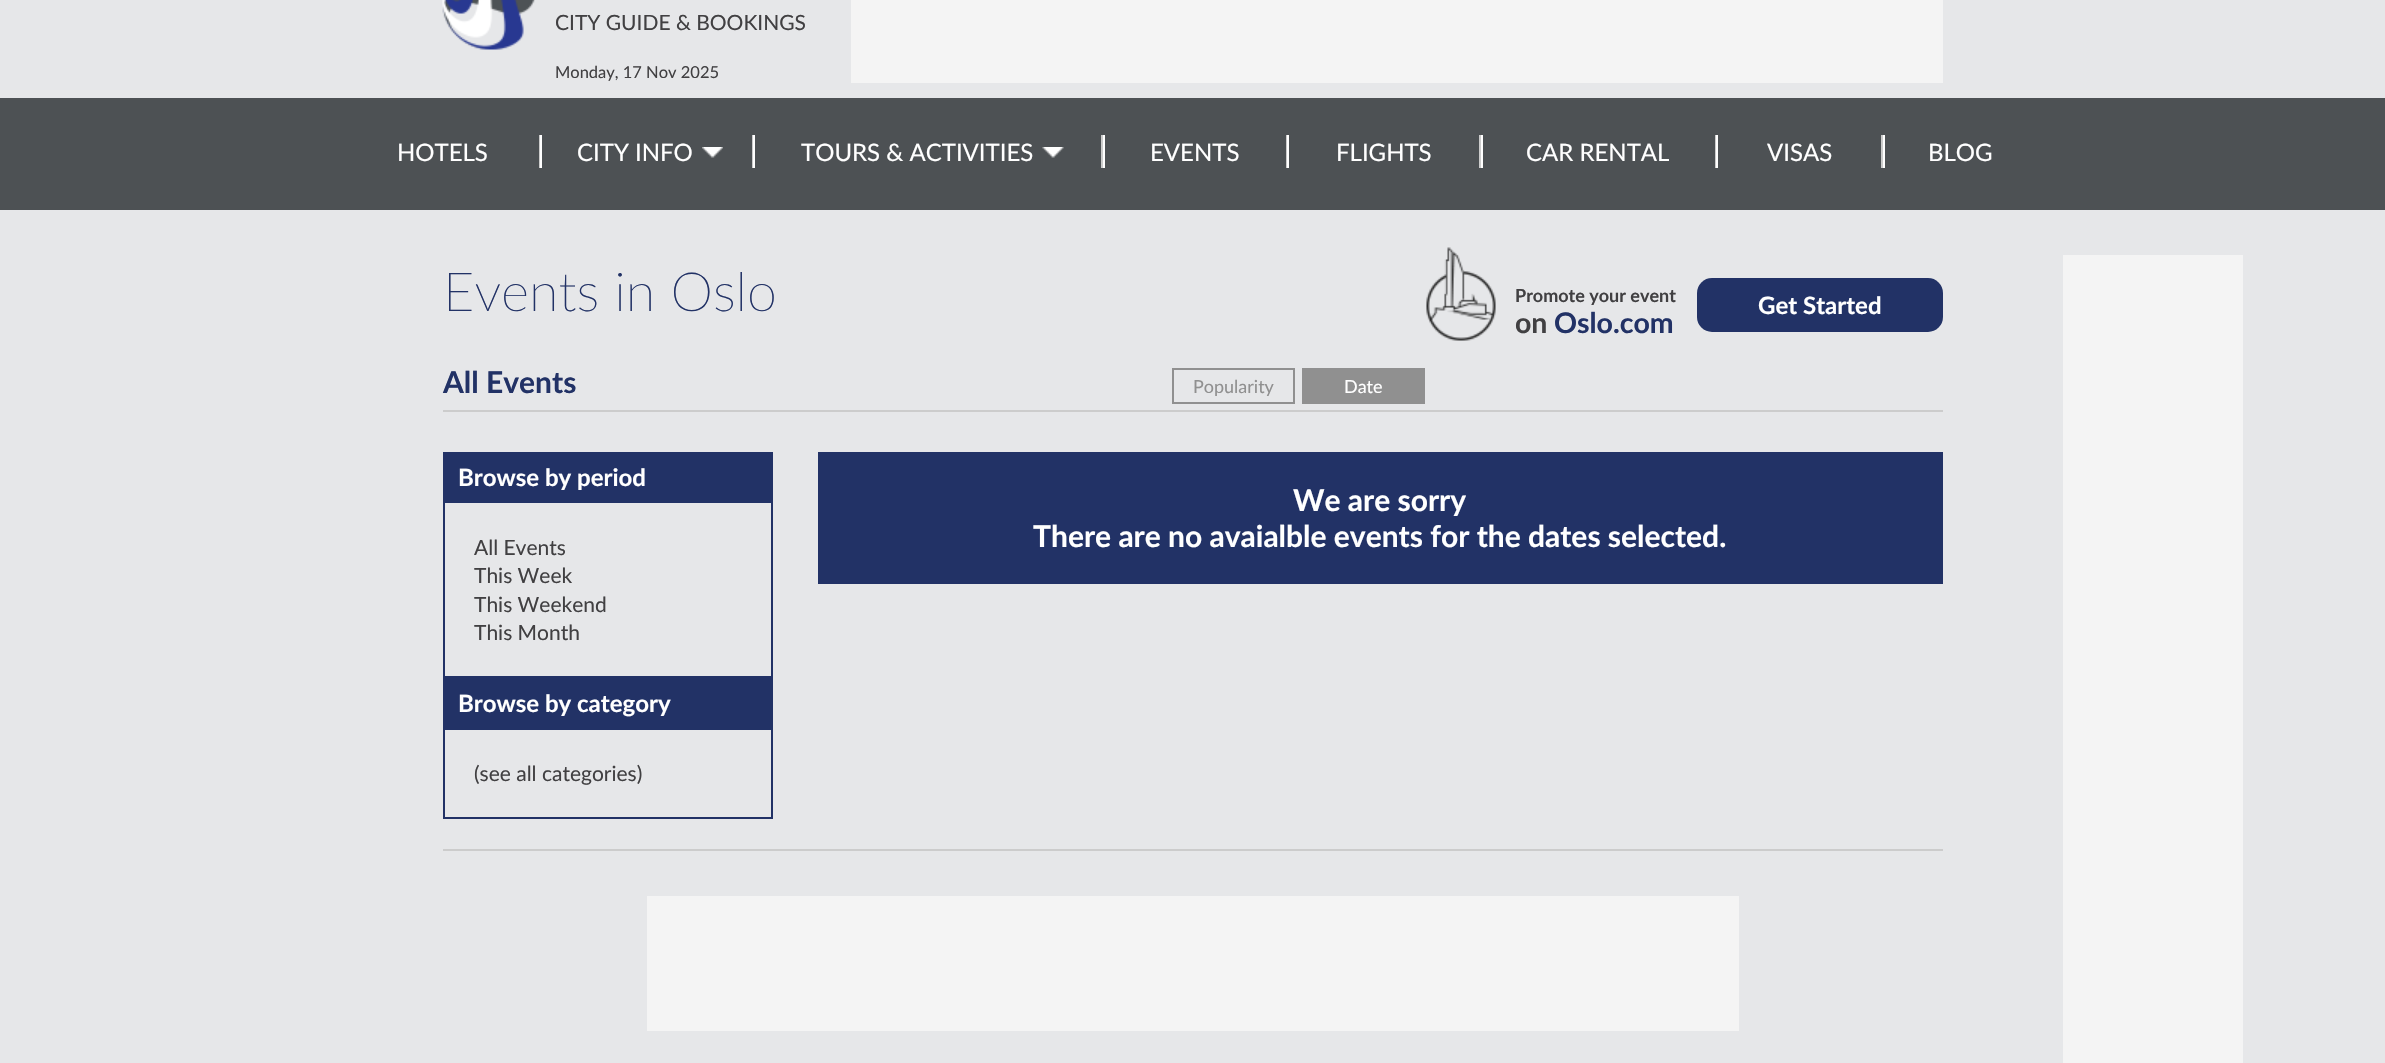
void draw(SkCanvas* canvas) {
	SkPaint fill;
	fill.setAntiAlias(true);
	auto makeFont = [&](const char* family, int weight, float size, bool italic = false) {
		SkFontStyle style(weight, SkFontStyle::kNormal_Width,
			italic ? SkFontStyle::kItalic_Slant : SkFontStyle::kUpright_Slant);
		SkFont result(fontMgr->matchFamilyStyle(family, style), size);
		result.setSubpixel(true);
		return result;
	};
	auto text = [&](const char* s, float x, float y, const SkFont& font) {
		canvas->drawString(s, x, y, font, fill);
	};
	auto box = [&](float l, float t, float r, float b) {
		canvas->drawRect(SkRect::MakeLTRB(l, t, r, b), fill);
	};
	auto roundBox = [&](float l, float t, float r, float b, float radius) {
		canvas->drawRoundRect(SkRect::MakeLTRB(l, t, r, b), radius, radius, fill);
	};
	auto picture = [&](const char* path, float l, float t, float r, float b) {
		auto image = SkImages::DeferredFromEncodedData(SkData::MakeFromFileName(path));
		canvas->drawImageRect(image, SkRect::MakeLTRB(l, t, r, b), SkSamplingOptions());
	};
	canvas->clear(0xFFE6E7E9);
	picture("image0.png", 442, 0, 535, 50);
	fill.setColor(0xFFF4F4F4);
	box(851, 0, 1943, 83);
	fill.setColor(0xFF4D5154);
	box(0, 98, 2385, 210);
	fill.setColor(0xFFCCCCCC);
	box(539, 135, 540, 168);
	box(752, 135, 753, 168);
	fill.setColor(0xFFFFFFFF);
	box(540, 135, 542, 168);
	picture("image1.png", 702, 147, 723, 158);
	fill.setColor(0xFFCCCCCC);
	box(1101, 135, 1103, 168);
	fill.setColor(0xFFFFFFFF);
	box(753, 135, 755, 168);
	picture("image2.png", 1042, 147, 1064, 158);
	fill.setColor(0xFFCCCCCC);
	box(1286, 135, 1287, 168);
	fill.setColor(0xFFFFFFFF);
	box(1103, 135, 1105, 168);
	fill.setColor(0xFFCCCCCC);
	box(1479, 135, 1481, 168);
	fill.setColor(0xFFFFFFFF);
	box(1287, 135, 1289, 168);
	fill.setColor(0xFFCCCCCC);
	box(1715, 135, 1716, 168);
	fill.setColor(0xFFFFFFFF);
	box(1481, 135, 1483, 168);
	fill.setColor(0xFFCCCCCC);
	box(1881, 135, 1883, 168);
	fill.setColor(0xFFFFFFFF);
	box(1716, 135, 1718, 168);
	box(1883, 135, 1885, 168);
	picture("image3.png", 1426, 247, 1496, 341);
	fill.setColor(0xFF223266);
	roundBox(1697, 278, 1943, 332, 15);
	fill.setColor(0xFFF4F4F4);
	box(2063, 255, 2243, 1063);
	fill.setColor(0xFFCCCCCC);
	box(443, 410, 1943, 412);
	fill.setStyle(SkPaint::kStroke_Style);
	fill.setStrokeWidth(2);
	fill.setColor(0xFF909090);
	canvas->drawRect(SkRect::MakeLTRB(1173, 369, 1294, 403), fill);
	fill.setStyle(SkPaint::kFill_Style);
	box(1302, 368, 1425, 404);
	fill.setColor(0xFF223266);
	box(443, 452, 773, 501);
	fill.setStyle(SkPaint::kStroke_Style);
	canvas->drawRect(SkRect::MakeLTRB(444, 502, 772, 677), fill);
	fill.setStyle(SkPaint::kFill_Style);
	box(443, 678, 773, 728);
	fill.setStyle(SkPaint::kStroke_Style);
	canvas->drawRect(SkRect::MakeLTRB(444, 729, 772, 818), fill);
	fill.setStyle(SkPaint::kFill_Style);
	box(818, 452, 1943, 584);
	fill.setColor(0xFFCCCCCC);
	box(443, 849, 1943, 851);
	fill.setColor(0xFFF4F4F4);
	box(647, 896, 1739, 1031);
	auto font1 = makeFont("Lato", 400, 21);
	fill.setColor(0xFF414042);
	text("CITY GUIDE & BOOKINGS", 555, 30, font1);
	auto font2 = makeFont("Lato", 400, 16.5f);
	text("Monday, 17 Nov 2025", 555, 78, font2);
	auto font3 = makeFont("Lato", 400, 24);
	fill.setColor(0xFFFFFFFF);
	text("HOTELS", 397, 161, font3);
	text("CITY INFO", 577, 161, font3);
	text("TOURS & ACTIVITIES", 801, 161, font3);
	text("EVENTS", 1150, 161, font3);
	text("FLIGHTS", 1336, 161, font3);
	text("CAR RENTAL", 1526, 161, font3);
	text("VISAS", 1767, 161, font3);
	text("BLOG", 1928, 161, font3);
	auto font4 = makeFont("Lato", 100, 54);
	fill.setColor(0xFF223266);
	text("Events in Oslo", 443, 311, font4);
	auto font5 = makeFont("Lato", 700, 18);
	fill.setColor(0xFF414042);
	text("Promote your event", 1515, 302, font5);
	auto font6 = makeFont("Lato", 700, 28.5f);
	text("on", 1515, 333, font6);
	fill.setColor(0xFF223266);
	text("Oslo.com", 1554, 333, font6);
	auto font7 = makeFont("Lato", 700, 24);
	fill.setColor(0xFFFFFFFF);
	text("Get Started", 1758, 314, font7);
	auto font8 = makeFont("Lato", 700, 30);
	fill.setColor(0xFF223266);
	text("All Events", 443, 393, font8);
	auto font9 = makeFont("Lato", 400, 18);
	fill.setColor(0xFF909090);
	text("Popularity", 1193, 393, font9);
	fill.setColor(0xFFFFFFFF);
	text("Date", 1344, 393, font9);
	text("Browse by period", 458, 486, font7);
	fill.setColor(0xFF414042);
	text("All Events", 474, 555, font1);
	text("This Week", 474, 583, font1);
	text("This Weekend", 474, 612, font1);
	text("This Month", 474, 640, font1);
	fill.setColor(0xFFFFFFFF);
	text("Browse by category", 458, 712, font7);
	fill.setColor(0xFF414042);
	text("(see all categories)", 474, 781, font1);
	fill.setColor(0xFFFFFFFF);
	text("We are sorry", 1293, 511, font8);
	text("There are no avaialble events for the dates selected.", 1033, 547, font8);
}
